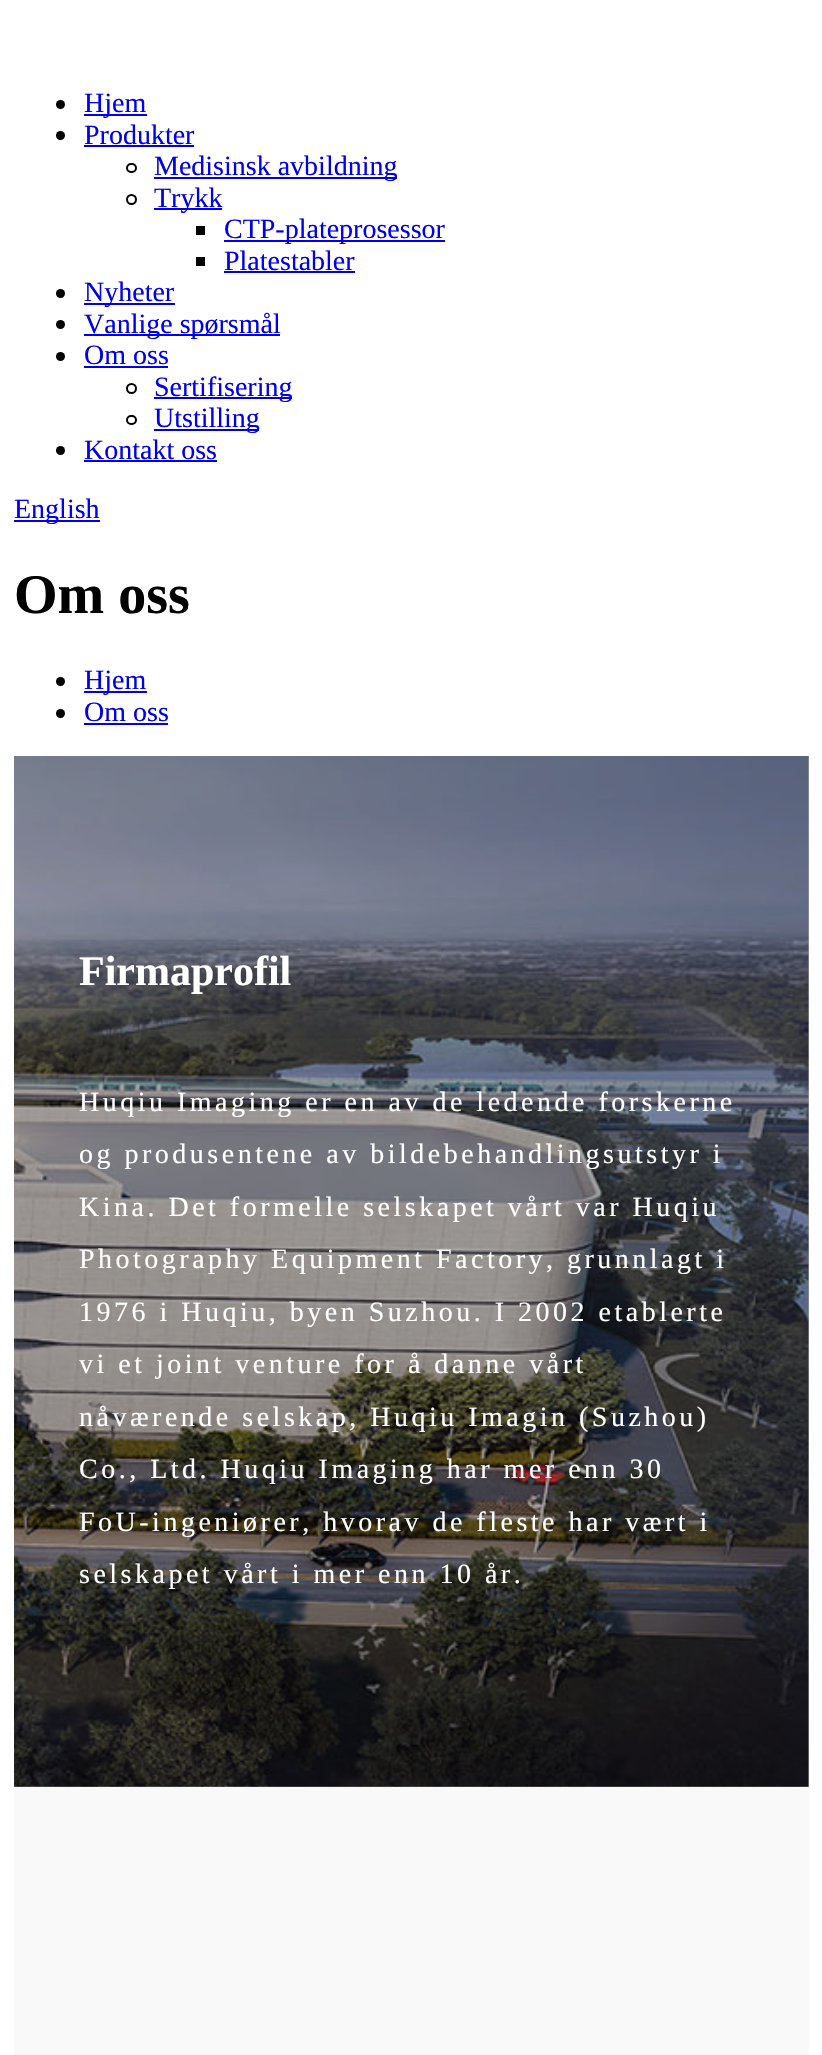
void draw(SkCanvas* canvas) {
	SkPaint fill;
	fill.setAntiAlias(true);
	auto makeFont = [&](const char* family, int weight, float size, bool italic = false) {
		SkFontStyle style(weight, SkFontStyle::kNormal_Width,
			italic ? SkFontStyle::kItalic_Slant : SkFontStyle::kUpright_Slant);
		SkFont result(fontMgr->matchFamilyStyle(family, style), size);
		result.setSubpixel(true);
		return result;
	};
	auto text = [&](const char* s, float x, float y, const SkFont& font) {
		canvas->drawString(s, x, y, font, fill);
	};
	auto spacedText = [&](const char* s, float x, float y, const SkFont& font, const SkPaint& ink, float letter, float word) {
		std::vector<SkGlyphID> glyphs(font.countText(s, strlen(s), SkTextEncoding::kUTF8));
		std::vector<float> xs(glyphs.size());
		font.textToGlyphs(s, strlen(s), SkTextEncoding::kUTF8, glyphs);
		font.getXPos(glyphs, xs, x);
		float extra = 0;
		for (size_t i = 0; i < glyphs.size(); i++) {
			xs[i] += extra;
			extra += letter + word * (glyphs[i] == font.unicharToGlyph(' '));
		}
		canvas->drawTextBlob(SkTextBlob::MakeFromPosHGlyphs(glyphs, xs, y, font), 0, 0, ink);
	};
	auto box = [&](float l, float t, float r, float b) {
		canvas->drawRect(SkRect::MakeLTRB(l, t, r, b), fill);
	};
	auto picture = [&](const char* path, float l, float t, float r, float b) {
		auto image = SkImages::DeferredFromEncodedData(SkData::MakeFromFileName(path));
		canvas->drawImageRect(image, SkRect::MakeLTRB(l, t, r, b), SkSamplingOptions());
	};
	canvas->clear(0xFFFFFFFF);
	fill.setColor(0xFFA9A6A6);
	box(14, 756, 809, 1787);
	fill.setColor(0xFF000000);
	canvas->drawCircle(60.5f, 104.5f, 4.5f, fill);
	fill.setColor(0xFF0000EE);
	box(84, 114, 147, 116);
	fill.setColor(0xFF000000);
	canvas->drawCircle(60.5f, 135.5f, 4.5f, fill);
	fill.setColor(0xFF0000EE);
	box(84, 145, 194, 147);
	fill.setStyle(SkPaint::kStroke_Style);
	fill.setStrokeWidth(2);
	fill.setColor(0xFF000000);
	canvas->drawRoundRect(SkRect::MakeLTRB(127, 164, 136, 172), 4, 4, fill);
	fill.setStyle(SkPaint::kFill_Style);
	fill.setColor(0xFF0000EE);
	box(154, 177, 397, 179);
	fill.setStyle(SkPaint::kStroke_Style);
	fill.setColor(0xFF000000);
	canvas->drawCircle(131.5f, 199.5f, 4.5f, fill);
	fill.setStyle(SkPaint::kFill_Style);
	fill.setColor(0xFF0000EE);
	box(154, 208, 222, 210);
	fill.setColor(0xFF000000);
	box(196, 226, 205, 235);
	fill.setColor(0xFF0000EE);
	box(224, 240, 445, 242);
	fill.setColor(0xFF000000);
	box(196, 257, 205, 266);
	fill.setColor(0xFF0000EE);
	box(224, 271, 355, 273);
	fill.setColor(0xFF000000);
	canvas->drawCircle(60.5f, 293.5f, 4.5f, fill);
	fill.setColor(0xFF0000EE);
	box(84, 303, 175, 305);
	fill.setColor(0xFF000000);
	canvas->drawCircle(60.5f, 324.5f, 4.5f, fill);
	fill.setColor(0xFF0000EE);
	box(84, 334, 280, 336);
	fill.setColor(0xFF000000);
	canvas->drawCircle(60.5f, 356.5f, 4.5f, fill);
	fill.setColor(0xFF0000EE);
	box(84, 366, 168, 368);
	fill.setStyle(SkPaint::kStroke_Style);
	fill.setColor(0xFF000000);
	canvas->drawCircle(131.5f, 388.5f, 4.5f, fill);
	fill.setStyle(SkPaint::kFill_Style);
	fill.setColor(0xFF0000EE);
	box(154, 397, 292, 399);
	fill.setStyle(SkPaint::kStroke_Style);
	fill.setColor(0xFF000000);
	canvas->drawRoundRect(SkRect::MakeLTRB(127, 416, 136, 424), 4, 4, fill);
	fill.setStyle(SkPaint::kFill_Style);
	fill.setColor(0xFF0000EE);
	box(154, 429, 259, 431);
	fill.setColor(0xFF000000);
	canvas->drawCircle(60.5f, 450.5f, 4.5f, fill);
	fill.setColor(0xFF0000EE);
	box(84, 460, 217, 462);
	box(14, 520, 100, 522);
	fill.setColor(0xFF000000);
	canvas->drawCircle(60.5f, 681.5f, 4.5f, fill);
	fill.setColor(0xFF0000EE);
	box(84, 691, 147, 693);
	fill.setColor(0xFF000000);
	canvas->drawCircle(60.5f, 713.5f, 4.5f, fill);
	fill.setColor(0xFF0000EE);
	box(84, 723, 168, 725);
	picture("image0.png", 14, 756, 809, 1787);
	fill.setColor(0xFFF9F9F9);
	box(14, 1787, 809, 2055);
	auto font1 = makeFont("Liberation Serif", 400, 28);
	fill.setColor(0xFF0000EE);
	text("Hjem", 84, 112, font1);
	text("Produkter", 84, 144, font1);
	text("Medisinsk avbildning", 154, 175, font1);
	text("Trykk", 154, 207, font1);
	text("CTP-plateprosessor", 224, 238, font1);
	text("Platestabler", 224, 270, font1);
	text("Nyheter", 84, 301, font1);
	text("Vanlige spørsmål", 84, 333, font1);
	text("Om oss", 84, 364, font1);
	text("Sertifisering", 154, 396, font1);
	text("Utstilling", 154, 427, font1);
	text("Kontakt oss", 84, 459, font1);
	text("English", 14, 518, font1);
	auto font2 = makeFont("Liberation Serif", 700, 56);
	fill.setColor(0xFF000000);
	text("Om oss", 14, 613, font2);
	fill.setColor(0xFF0000EE);
	text("Hjem", 84, 689, font1);
	text("Om oss", 84, 721, font1);
	auto font3 = makeFont("Liberation Serif", 700, 42);
	fill.setColor(0xFFFFFFFF);
	text("Firmaprofil", 79, 985, font3);
	spacedText("Huqiu Imaging er en av de ledende forskerne", 79, 1111, font1, fill, 3.5f, 0);
	spacedText("og produsentene av bildebehandlingsutstyr i", 79, 1163, font1, fill, 3.5f, 0);
	spacedText("Kina. Det formelle selskapet vårt var Huqiu", 79, 1216, font1, fill, 3.5f, 0);
	spacedText("Photography Equipment Factory, grunnlagt i", 79, 1268, font1, fill, 3.5f, 0);
	spacedText("1976 i Huqiu, byen Suzhou. I 2002 etablerte", 79, 1321, font1, fill, 3.5f, 0);
	spacedText("vi et joint venture for å danne vårt", 79, 1373, font1, fill, 3.5f, 0);
	spacedText("nåværende selskap, Huqiu Imagin (Suzhou)", 79, 1426, font1, fill, 3.5f, 0);
	spacedText("Co., Ltd. Huqiu Imaging har mer enn 30", 79, 1478, font1, fill, 3.5f, 0);
	spacedText("FoU-ingeniører, hvorav de fleste har vært i", 79, 1531, font1, fill, 3.5f, 0);
	spacedText("selskapet vårt i mer enn 10 år.", 79, 1583, font1, fill, 3.5f, 0);
}
